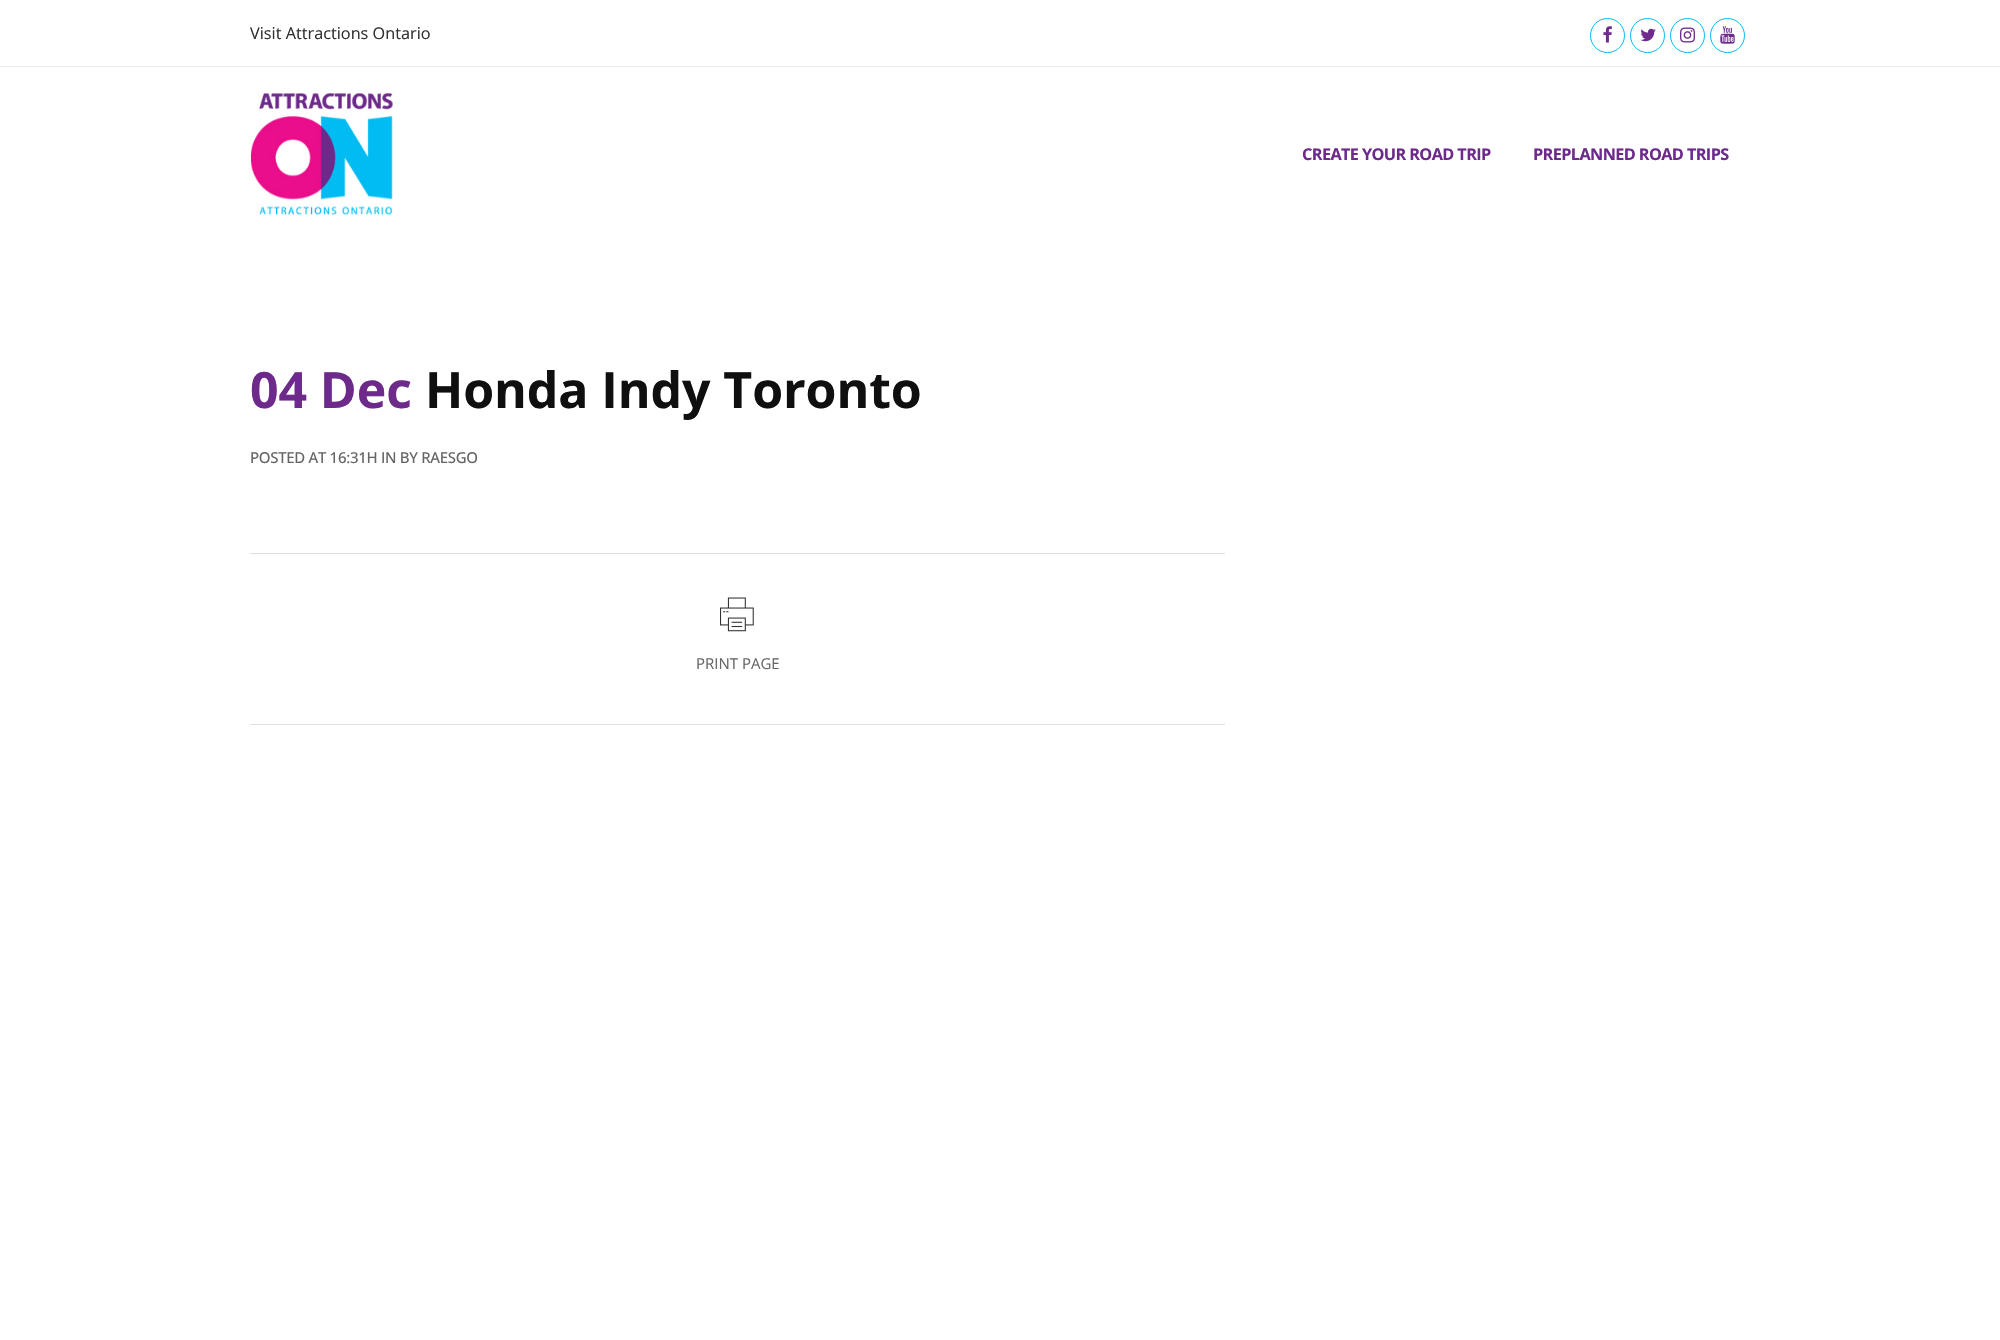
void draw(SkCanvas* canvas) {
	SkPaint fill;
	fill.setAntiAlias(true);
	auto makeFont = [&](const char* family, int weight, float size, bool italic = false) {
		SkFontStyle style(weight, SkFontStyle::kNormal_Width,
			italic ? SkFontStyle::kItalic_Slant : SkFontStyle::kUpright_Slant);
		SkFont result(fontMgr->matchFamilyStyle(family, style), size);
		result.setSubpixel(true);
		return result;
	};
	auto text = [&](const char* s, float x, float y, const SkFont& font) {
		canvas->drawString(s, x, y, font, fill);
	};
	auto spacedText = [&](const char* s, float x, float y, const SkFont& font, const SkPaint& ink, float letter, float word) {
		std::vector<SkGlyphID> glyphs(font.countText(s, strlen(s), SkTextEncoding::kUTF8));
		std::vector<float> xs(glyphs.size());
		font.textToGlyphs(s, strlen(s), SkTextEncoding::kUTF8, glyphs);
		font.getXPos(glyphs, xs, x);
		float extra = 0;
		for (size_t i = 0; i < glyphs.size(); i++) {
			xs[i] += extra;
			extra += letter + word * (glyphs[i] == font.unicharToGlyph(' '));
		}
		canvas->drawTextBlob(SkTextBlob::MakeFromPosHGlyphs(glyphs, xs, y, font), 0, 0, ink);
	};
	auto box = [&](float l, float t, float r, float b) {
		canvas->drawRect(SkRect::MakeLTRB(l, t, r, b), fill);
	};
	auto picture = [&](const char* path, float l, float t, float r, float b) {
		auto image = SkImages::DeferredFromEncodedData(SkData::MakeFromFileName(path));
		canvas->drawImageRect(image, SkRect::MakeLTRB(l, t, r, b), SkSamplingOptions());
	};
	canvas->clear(0xFFFFFFFF);
	fill.setColor(0xFFEDEDED);
	box(0, 66, 2000, 67);
	fill.setStyle(SkPaint::kStroke_Style);
	fill.setStrokeWidth(1);
	fill.setColor(0xFF01BCF3);
	canvas->drawCircle(1607.5f, 35.5f, 17, fill);
	picture("image0.png", 1603, 26, 1612, 43);
	canvas->drawCircle(1647.5f, 35.5f, 17, fill);
	picture("image1.png", 1640, 28, 1656, 42);
	canvas->drawCircle(1687.5f, 35.5f, 17, fill);
	picture("image2.png", 1680, 27, 1695, 43);
	canvas->drawCircle(1727.5f, 35.5f, 17, fill);
	picture("image3.png", 1720, 26, 1735, 44);
	picture("image4.png", 250, 93, 393, 215);
	fill.setStyle(SkPaint::kFill_Style);
	fill.setColor(0xFFE0E0E0);
	box(250, 553, 1225, 554);
	box(250, 724, 1225, 725);
	picture("image5.png", 720, 597, 754, 632);
	auto font1 = makeFont("Open Sans", 400, 16.25f);
	fill.setColor(0xFF303030);
	text("Visit Attractions Ontario", 250, 39, font1);
	auto font2 = makeFont("Open Sans", 700, 16.25f);
	fill.setColor(0xFF6D2A8B);
	spacedText("CREATE YOUR ROAD TRIP", 1302, 160, font2, fill, -0.6f, 0);
	spacedText("PREPLANNED ROAD TRIPS", 1533, 160, font2, fill, -0.6f, 0);
	auto font3 = makeFont("Open Sans", 700, 50);
	spacedText("04 Dec", 250, 408, font3, fill, -0.1f, 0);
	fill.setColor(0xFF100F0F);
	spacedText("Honda Indy Toronto", 425, 408, font3, fill, -0.1f, 0);
	auto font4 = makeFont("Open Sans", 500, 15);
	fill.setColor(0xFF666666);
	spacedText("POSTED AT 16:31H IN BY RAESGO", 250, 463, font4, fill, -0.3f, 0);
	auto font5 = makeFont("Open Sans", 400, 15);
	text("PRINT PAGE", 696, 669, font5);
}
